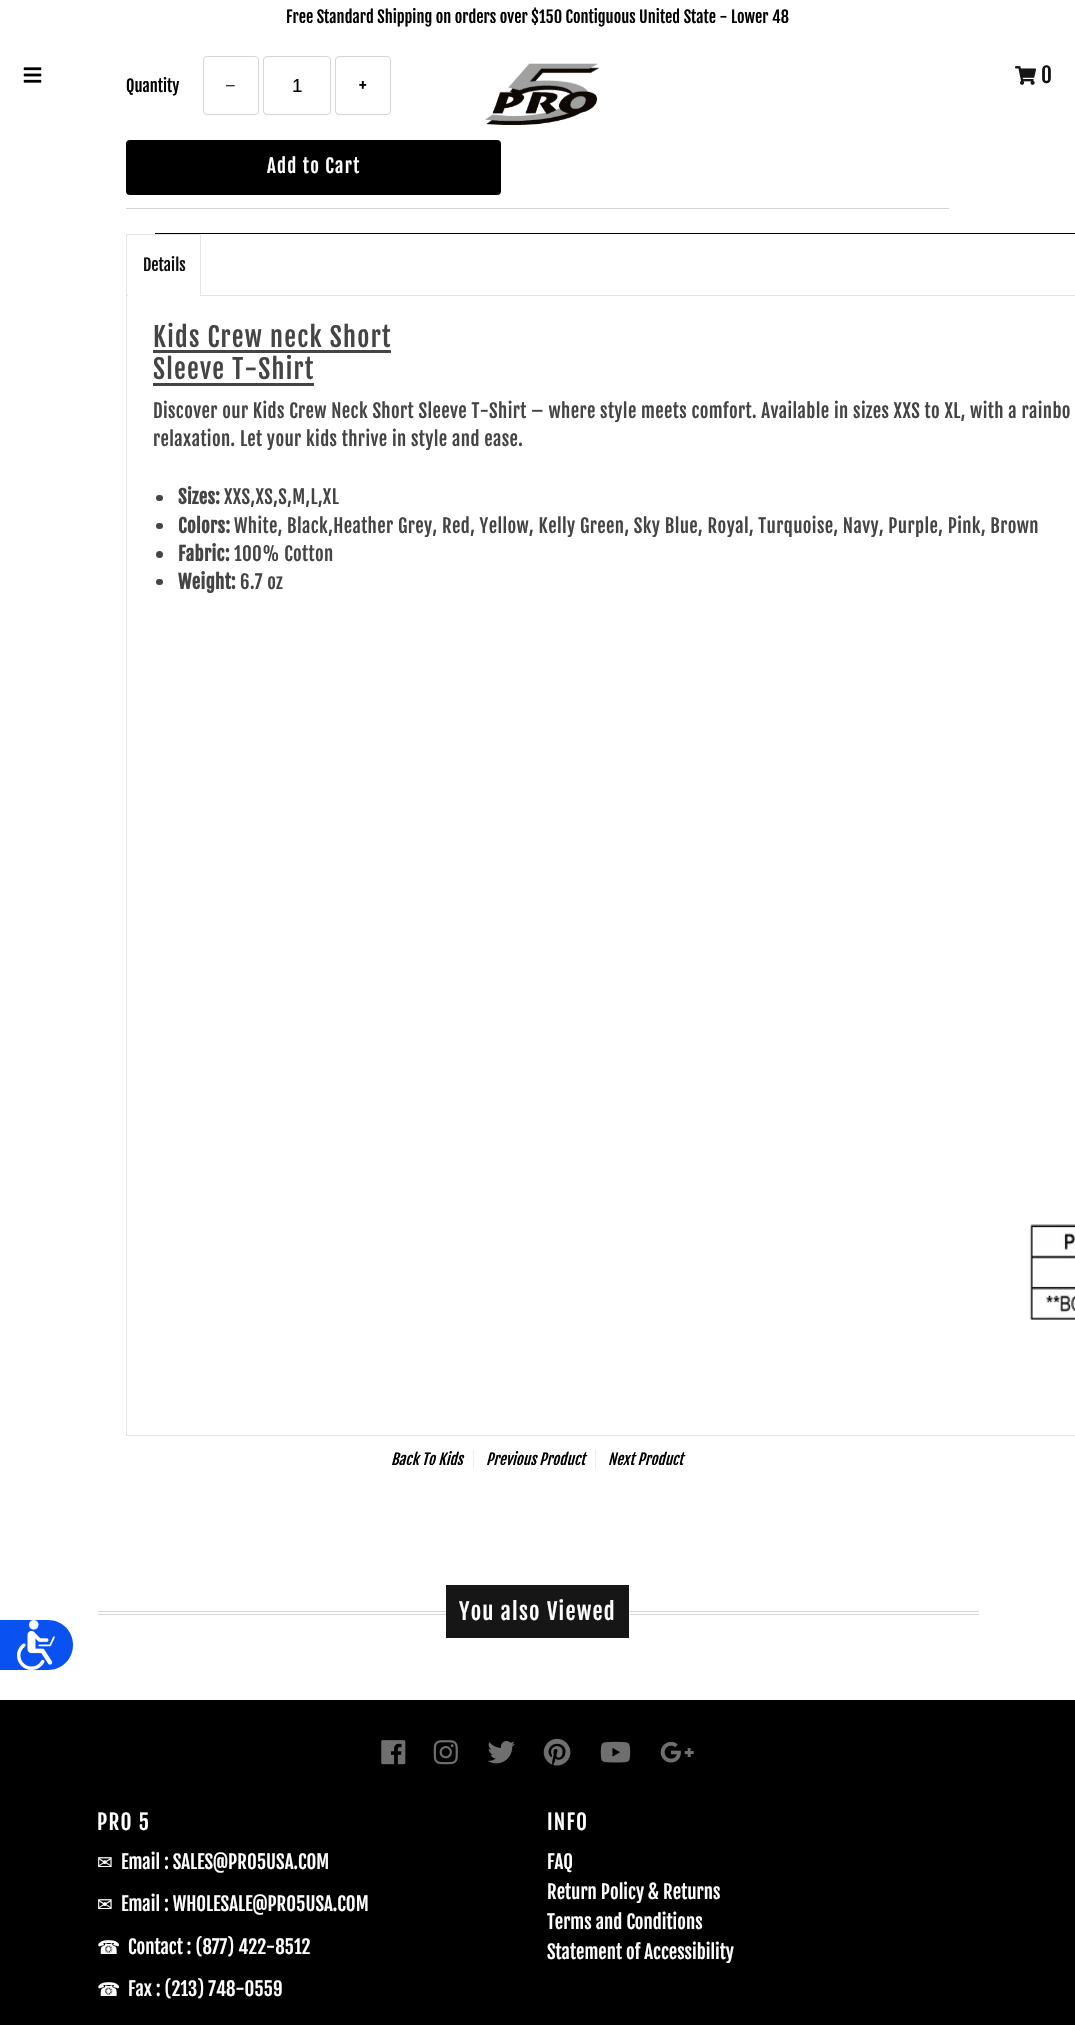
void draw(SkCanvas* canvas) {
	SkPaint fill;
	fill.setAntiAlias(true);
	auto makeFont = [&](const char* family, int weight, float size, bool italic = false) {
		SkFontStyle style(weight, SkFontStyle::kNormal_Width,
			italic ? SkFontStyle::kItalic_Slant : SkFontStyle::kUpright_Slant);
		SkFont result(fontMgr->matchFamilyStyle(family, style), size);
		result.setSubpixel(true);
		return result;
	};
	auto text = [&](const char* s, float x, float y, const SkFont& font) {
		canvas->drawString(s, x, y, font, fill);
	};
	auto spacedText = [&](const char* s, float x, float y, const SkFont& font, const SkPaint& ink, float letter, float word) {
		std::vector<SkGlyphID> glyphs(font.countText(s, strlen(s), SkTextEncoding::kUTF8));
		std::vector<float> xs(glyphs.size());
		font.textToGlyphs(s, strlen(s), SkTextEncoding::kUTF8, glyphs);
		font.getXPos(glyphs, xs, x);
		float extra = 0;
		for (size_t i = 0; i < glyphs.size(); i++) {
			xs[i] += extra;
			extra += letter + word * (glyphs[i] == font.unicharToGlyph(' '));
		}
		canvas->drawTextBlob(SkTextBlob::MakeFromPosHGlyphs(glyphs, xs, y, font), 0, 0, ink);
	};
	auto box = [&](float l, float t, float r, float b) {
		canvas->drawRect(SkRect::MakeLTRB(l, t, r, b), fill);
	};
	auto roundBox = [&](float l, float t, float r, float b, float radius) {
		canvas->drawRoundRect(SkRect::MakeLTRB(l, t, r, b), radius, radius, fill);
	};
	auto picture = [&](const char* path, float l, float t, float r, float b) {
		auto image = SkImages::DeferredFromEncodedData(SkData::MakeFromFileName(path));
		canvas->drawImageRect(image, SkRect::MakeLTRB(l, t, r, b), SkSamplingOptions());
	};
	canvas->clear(0xFFFFFFFF);
	fill.setColor(0xFF0A51F2);
	canvas->drawPath(SkPathBuilder().moveTo(0, 1620).lineTo(48, 1620).cubicTo(62, 1620, 73, 1631, 73, 1645).cubicTo(73, 1659, 62, 1670, 48, 1670).lineTo(0, 1670).close().detach(), fill);
	picture("image0.png", 17, 1620, 55, 1670);
	picture("image1.png", 23, 67, 42, 83);
	picture("image2.png", 485, 63, 600, 125);
	picture("image3.png", 1015, 66, 1037, 85);
	fill.setColor(0xFFD5D5D5);
	box(126, 208, 949, 209);
	fill.setStyle(SkPaint::kStroke_Style);
	fill.setStrokeWidth(1);
	canvas->drawRoundRect(SkRect::MakeLTRB(203.5f, 56.5f, 258.5f, 114.5f), 3.5f, 3.5f, fill);
	canvas->drawRoundRect(SkRect::MakeLTRB(263.5f, 56.5f, 330.5f, 114.5f), 3.5f, 3.5f, fill);
	canvas->drawRoundRect(SkRect::MakeLTRB(335.5f, 56.5f, 390.5f, 114.5f), 3.5f, 3.5f, fill);
	fill.setStyle(SkPaint::kFill_Style);
	fill.setColor(0xFF000000);
	roundBox(126, 140, 501, 195, 4);
	box(155, 233, 1075, 234);
	fill.setColor(0xFFE4E4E4);
	box(126, 234, 201, 235);
	box(200, 234, 201, 295);
	box(126, 234, 127, 295);
	fill.setStyle(SkPaint::kStroke_Style);
	canvas->drawRect(SkRect::MakeLTRB(126.5f, 295.5f, 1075.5f, 1435.5f), fill);
	fill.setStyle(SkPaint::kFill_Style);
	fill.setColor(0xFFFFFFFF);
	box(128, 295, 200, 296);
	fill.setColor(0xFF444444);
	box(153, 350, 391, 353);
	box(153, 383, 314, 386);
	roundBox(156, 495, 163, 501, 3);
	roundBox(156, 523, 163, 529, 3);
	canvas->drawCircle(159.5f, 554.5f, 3.5f, fill);
	roundBox(156, 579, 163, 585, 3);
	picture("image4.png", 1029, 1224, 1075, 1320);
	fill.setColor(0xFFEEEEEE);
	box(473, 1450, 474, 1469);
	box(595, 1450, 596, 1469);
	fill.setColor(0xFFD5D5D5);
	box(98, 1611, 979, 1612);
	box(98, 1614, 979, 1615);
	fill.setColor(0xFF161616);
	box(446, 1585, 629, 1638);
	fill.setColor(0xFF000000);
	box(0, 1700, 1075, 2025);
	picture("image5.png", 381, 1740, 406, 1765);
	picture("image6.png", 433, 1740, 458, 1765);
	picture("image7.png", 487, 1741, 515, 1764);
	picture("image8.png", 543, 1738, 571, 1766);
	picture("image9.png", 600, 1741, 631, 1763);
	picture("image10.png", 660, 1741, 694, 1763);
	auto font1 = makeFont("Fjalla One", 400, 16.25f);
	text("Free Standard Shipping on orders over $150 Contiguous United State - Lower 48", 286, 23, font1);
	auto font2 = makeFont("Fjalla One", 400, 21);
	fill.setColor(0xFF111111);
	text("0", 1041, 83, font2);
	fill.setColor(0xFF000000);
	text("Quantity", 126, 92, font1);
	auto font3 = makeFont("Liberation Serif", 400, 18.75f);
	spacedText("−", 225, 92, font3, fill, 1.25f, 0);
	auto font4 = makeFont("Liberation Sans", 400, 18.75f);
	text("1", 292, 92, font4);
	auto font5 = makeFont("Fjalla One", 400, 18.75f);
	spacedText("+", 359, 92, font5, fill, 1.25f, 0);
	fill.setColor(0xFFFFFFFF);
	spacedText("Add to Cart", 267, 173, font5, fill, 1.25f, 0);
	fill.setColor(0xFF111111);
	text("Details", 143, 271, font1);
	auto font6 = makeFont("Fjalla One", 400, 26.25f);
	fill.setColor(0xFF444444);
	spacedText("Kids Crew neck Short", 153, 347, font6, fill, 1.25f, 0);
	spacedText("Sleeve T-Shirt", 153, 379, font6, fill, 1.25f, 0);
	spacedText("Discover our Kids Crew Neck Short Sleeve T-Shirt – where style meets comfort. Available in sizes XXS to XL, with a rainbo", 153, 418, font5, fill, 0.38f, 0);
	spacedText("relaxation. Let your kids thrive in style and ease.", 153, 446, font5, fill, 0.38f, 0);
	auto font7 = makeFont("Fjalla One", 700, 18.75f);
	spacedText("Sizes:", 178, 504, font7, fill, 0.38f, 0);
	spacedText("XXS,XS,S,M,L,XL", 224, 504, font5, fill, 0.38f, 0);
	spacedText("Colors:", 178, 533, font7, fill, 0.38f, 0);
	spacedText("White, Black,Heather Grey, Red, Yellow, Kelly Green, Sky Blue, Royal, Turquoise, Navy, Purple, Pink, Brown", 234, 533, font5, fill, 0.38f, 0);
	spacedText("Fabric:", 178, 561, font7, fill, 0.38f, 0);
	spacedText("100% Cotton", 234, 561, font5, fill, 0.38f, 0);
	spacedText("Weight:", 178, 589, font7, fill, 0.38f, 0);
	spacedText("6.7 oz", 240, 589, font5, fill, 0.38f, 0);
	auto font8 = makeFont("Fjalla One", 400, 15, true);
	fill.setColor(0xFF000000);
	text("Back To Kids", 391, 1465, font8);
	text("Previous Product", 486, 1465, font8);
	text("Next Product", 608, 1465, font8);
	auto font9 = makeFont("Fjalla One", 400, 22.5f);
	fill.setColor(0xFFFFFFFF);
	spacedText("You also Viewed", 459, 1620, font9, fill, 1.25f, 0);
	spacedText("PRO 5", 97, 1830, font2, fill, 1.25f, 0);
	auto font10 = makeFont("DejaVu Sans", 400, 18.75f);
	text("✉", 97, 1869, font10);
	text("Email : SALES@PRO5USA.COM", 121, 1869, font5);
	text("✉", 97, 1911, font10);
	text("Email : WHOLESALE@PRO5USA.COM", 121, 1911, font5);
	text("☎", 97, 1954, font10);
	text("Contact : (877) 422-8512", 128, 1954, font5);
	text("☎", 97, 1996, font10);
	text("Fax : (213) 748-0559", 128, 1996, font5);
	spacedText("INFO", 547, 1830, font2, fill, 1.25f, 0);
	text("FAQ", 547, 1869, font5);
	text("Return Policy & Returns", 547, 1899, font5);
	text("Terms and Conditions", 547, 1929, font5);
	text("Statement of Accessibility", 547, 1959, font5);
}
